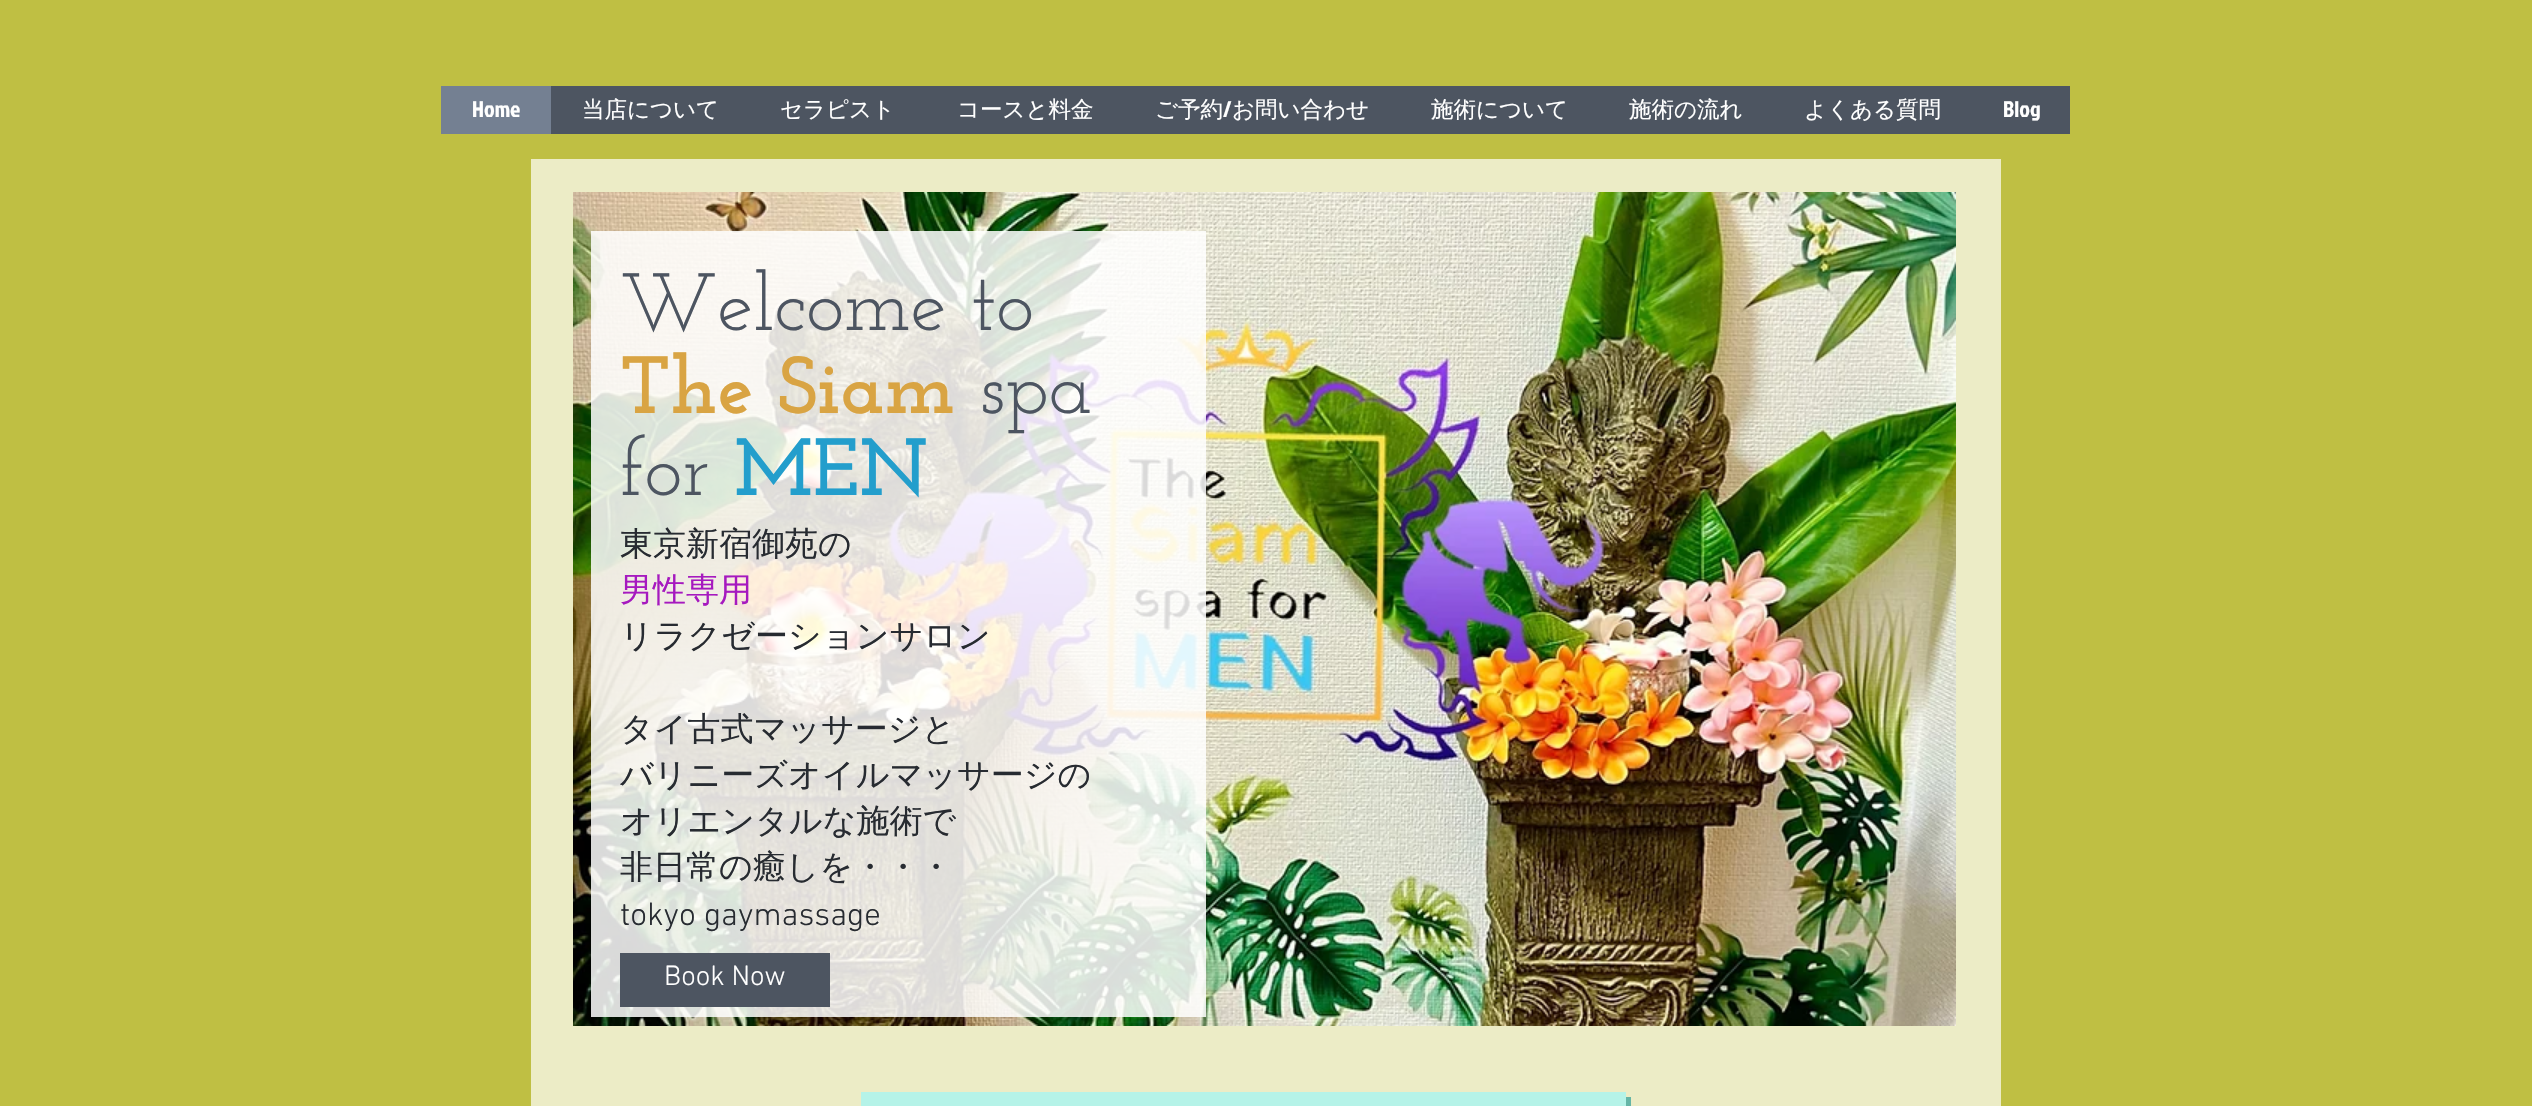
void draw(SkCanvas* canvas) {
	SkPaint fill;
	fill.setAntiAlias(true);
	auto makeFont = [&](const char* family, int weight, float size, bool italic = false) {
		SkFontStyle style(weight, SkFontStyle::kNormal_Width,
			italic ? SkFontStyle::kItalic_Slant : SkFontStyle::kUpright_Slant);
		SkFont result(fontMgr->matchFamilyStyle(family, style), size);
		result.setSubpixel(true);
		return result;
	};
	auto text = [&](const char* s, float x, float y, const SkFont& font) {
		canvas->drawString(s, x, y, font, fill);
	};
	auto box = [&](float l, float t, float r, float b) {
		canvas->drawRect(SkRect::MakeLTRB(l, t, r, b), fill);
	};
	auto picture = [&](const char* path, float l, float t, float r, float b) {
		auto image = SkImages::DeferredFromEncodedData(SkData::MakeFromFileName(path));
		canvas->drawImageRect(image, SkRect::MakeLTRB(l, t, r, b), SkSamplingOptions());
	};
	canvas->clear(0xFFBFBF43);
	fill.setColor(0xFF4D5561);
	box(551, 86, 2070, 134);
	fill.setColor(0xFF748092);
	box(441, 86, 551, 134);
	fill.setColor(0xFFECECC6);
	box(531, 159, 2001, 1106);
	picture("image0.png", 573, 192, 1956, 1026);
	fill.setColor(0xD9FFFFFF);
	box(591, 231, 1206, 1017);
	fill.setColor(0xFF4D5561);
	box(620, 953, 830, 1007);
	fill.setColor(0xFF65B5A6);
	canvas->drawPath(SkPathBuilder().moveTo(866, 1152).lineTo(866, 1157).lineTo(1631, 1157).lineTo(1631, 1097).lineTo(1626, 1097).lineTo(1626, 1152).close().detach(), fill);
	fill.setColor(0xFFB5F3E8);
	box(861, 1092, 1626, 1106);
	auto font1 = makeFont("Jockey One", 400, 22.5f);
	fill.setColor(0xFFFFFFFF);
	text("Home", 472, 117, font1);
	auto font2 = makeFont("WenQuanYi Zen Hei", 500, 22.5f);
	text("当店について", 582, 117, font2);
	text("セラピスト", 780, 117, font2);
	text("コースと料金", 957, 117, font2);
	text("ご予約", 1155, 117, font2);
	text("/", 1223, 117, font1);
	text("お問い合わせ", 1232, 117, font2);
	text("施術について", 1431, 117, font2);
	text("施術の流れ", 1629, 117, font2);
	text("よくある質問", 1804, 117, font2);
	text("Blog", 2003, 117, font1);
	auto font3 = makeFont("Josefin Slab", 400, 81);
	fill.setColor(0xFF4D5561);
	text("Welcome to", 620, 330, font3);
	auto font4 = makeFont("Josefin Slab", 700, 81);
	fill.setColor(0xFFD9A443);
	text("The Siam", 620, 413, font4);
	fill.setColor(0xFF4D5561);
	text("spa", 979, 413, font3);
	text("for", 620, 495, font3);
	fill.setColor(0xFF239ECC);
	text("MEN", 734, 495, font4);
	auto font5 = makeFont("WenQuanYi Zen Hei", 500, 33);
	fill.setColor(0xFF272B31);
	text("東京新宿御苑の", 620, 555, font5);
	fill.setColor(0xFFA619BF);
	text("男性専用", 620, 601, font5);
	fill.setColor(0xFF272B31);
	text("リラクゼーションサロン", 620, 647, font5);
	text("タイ古式マッサージと", 620, 740, font5);
	text("バリニーズオイルマッサージの", 620, 786, font5);
	text("オリエンタルな施術で", 620, 832, font5);
	text("非日常の癒しを・・・", 620, 878, font5);
	auto font6 = makeFont("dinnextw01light", 300, 33);
	text("tokyo gaymassage", 620, 925, font6);
	auto font7 = makeFont("dinnextw01light", 300, 28.5f);
	fill.setColor(0xFFFFFFFF);
	text("Book Now", 664, 985, font7);
}
